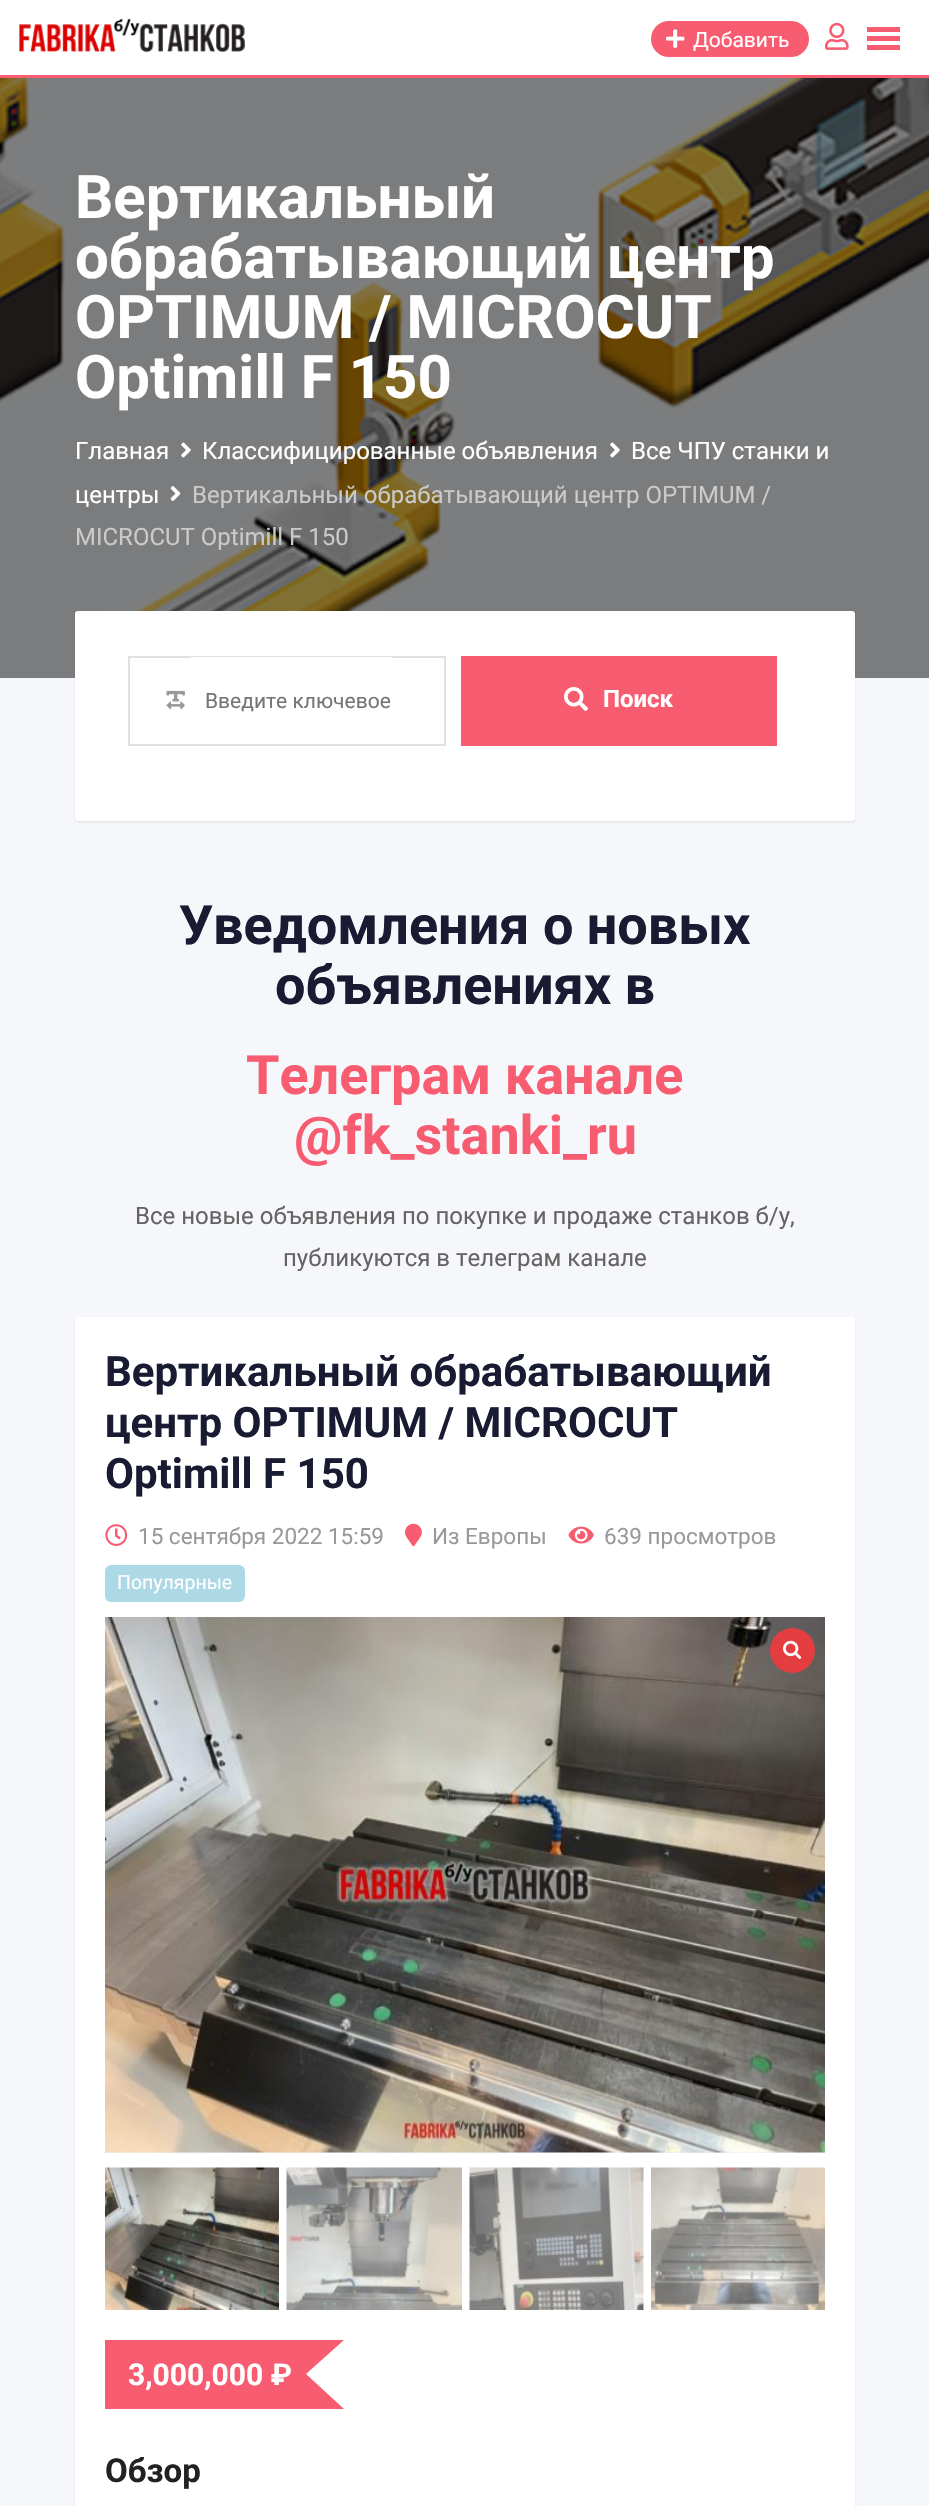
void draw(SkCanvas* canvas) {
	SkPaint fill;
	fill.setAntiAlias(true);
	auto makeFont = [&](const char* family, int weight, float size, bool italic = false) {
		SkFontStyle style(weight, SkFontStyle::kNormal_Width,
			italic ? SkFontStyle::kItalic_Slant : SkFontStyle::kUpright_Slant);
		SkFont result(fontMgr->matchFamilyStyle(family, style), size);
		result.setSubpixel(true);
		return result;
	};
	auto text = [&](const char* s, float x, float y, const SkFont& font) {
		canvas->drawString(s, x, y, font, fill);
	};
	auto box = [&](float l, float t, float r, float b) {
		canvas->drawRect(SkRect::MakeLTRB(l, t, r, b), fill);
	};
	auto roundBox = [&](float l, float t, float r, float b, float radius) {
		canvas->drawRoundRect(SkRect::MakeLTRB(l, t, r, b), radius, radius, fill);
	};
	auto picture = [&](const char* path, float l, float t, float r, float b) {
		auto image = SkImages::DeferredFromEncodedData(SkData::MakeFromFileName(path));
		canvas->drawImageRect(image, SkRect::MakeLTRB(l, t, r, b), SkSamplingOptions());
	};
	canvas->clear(0xFFFFFFFF);
	fill.setColor(0xFFF85C70);
	box(0, 75, 929, 78);
	picture("image0.png", 19, 18, 245, 52);
	roundBox(651, 21, 809, 57, 18);
	picture("image1.png", 666, 29, 685, 48);
	picture("image2.png", 825, 22, 849, 50);
	box(867, 27, 900, 32);
	box(867, 36, 900, 41);
	box(867, 45, 900, 50);
	fill.setColor(0xFFF5F7FA);
	box(0, 678, 929, 2506);
	fill.setColor(0xFF7B7C7D);
	box(0, 78, 929, 678);
	picture("image3.png", 0, 78, 929, 611);
	picture("image4.png", 181, 442, 191, 458);
	picture("image4.png", 610, 442, 620, 458);
	picture("image5.png", 170, 486, 181, 501);
	fill.setColor(0x1A000000);
	fill.setMaskFilter(SkMaskFilter::MakeBlur(kNormal_SkBlurStyle, 1));
	canvas->drawRoundRect(SkRect::MakeLTRB(75, 612, 855, 822), 3, 3, fill);
	fill.setMaskFilter(nullptr);
	fill.setColor(0xFFFFFFFF);
	roundBox(75, 611, 855, 821, 3);
	fill.setStyle(SkPaint::kStroke_Style);
	fill.setStrokeWidth(2);
	fill.setColor(0xFFE1E1E1);
	canvas->drawRect(SkRect::MakeLTRB(129, 657, 445, 745), fill);
	picture("image6.png", 166, 690, 185, 710);
	fill.setStyle(SkPaint::kFill_Style);
	fill.setColor(0xFFFFFFFF);
	box(191, 657, 392, 658);
	fill.setColor(0xFFF85C70);
	box(461, 656, 777, 746);
	picture("image7.png", 564, 687, 588, 711);
	fill.setColor(0x1A000000);
	fill.setMaskFilter(SkMaskFilter::MakeBlur(kNormal_SkBlurStyle, 1));
	canvas->drawRoundRect(SkRect::MakeLTRB(75, 1319, 855, 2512), 3, 3, fill);
	fill.setMaskFilter(nullptr);
	fill.setColor(0xFFFFFFFF);
	box(75, 1317, 855, 2506);
	picture("image8.png", 105, 1524, 128, 1546);
	picture("image9.png", 405, 1523, 422, 1547);
	picture("image10.png", 568, 1526, 594, 1544);
	fill.setColor(0xFFADD8E6);
	roundBox(105, 1565, 245, 1602, 6);
	fill.setColor(0xFFE7EDEE);
	box(105, 2152, 825, 2153);
	picture("image11.png", 105, 1617, 825, 2153);
	fill.setColor(0xFFE43D40);
	canvas->drawCircle(792.5f, 1650.5f, 22.5f, fill);
	picture("image12.png", 783, 1640, 802, 1659);
	picture("image13.png", 105, 2167, 279, 2310);
	picture("image14.png", 286, 2167, 462, 2310);
	picture("image15.png", 469, 2167, 644, 2310);
	picture("image16.png", 651, 2167, 825, 2310);
	fill.setColor(0xFFF85C70);
	canvas->drawPath(SkPathBuilder().moveTo(105, 2340).lineTo(105, 2409).lineTo(344, 2409).lineTo(306, 2374).lineTo(344, 2340).close().detach(), fill);
	auto font1 = makeFont("Roboto", 400, 21);
	fill.setColor(0xFFFFFFFF);
	text("Добавить", 693, 47, font1);
	auto font2 = makeFont("Roboto", 700, 60);
	text("Вертикальный", 75, 218, font2);
	text("обрабатывающий центр", 75, 278, font2);
	text("OPTIMUM / MICROCUT", 75, 338, font2);
	text("Optimill F 150", 75, 398, font2);
	auto font3 = makeFont("Roboto", 400, 24);
	text("Главная", 75, 459, font3);
	text("Классифицированные объявления", 202, 459, font3);
	text("Все ЧПУ станки и", 631, 459, font3);
	text("центры", 75, 503, font3);
	fill.setColor(0xFFCACACA);
	text("Вертикальный обрабатывающий центр OPTIMUM /", 192, 503, font3);
	text("MICROCUT Optimill F 150", 75, 545, font3);
	fill.setColor(0xFF757575);
	text("Введите ключевое", 205, 708, font1);
	auto font4 = makeFont("Roboto", 700, 24);
	fill.setColor(0xFFFFFFFF);
	text("Поиск", 603, 707, font4);
	auto font5 = makeFont("Roboto", 700, 54);
	fill.setColor(0xFF181B31);
	text("Уведомления о новых", 179, 944, font5);
	text("объявлениях в", 275, 1004, font5);
	fill.setColor(0xFFF85C70);
	text("Телеграм канале", 246, 1094, font5);
	text("@fk_stanki_ru", 294, 1154, font5);
	fill.setColor(0xFF646464);
	text("Все новые объявления по покупке и продаже станков б/у,", 135, 1224, font3);
	text("публикуются в телеграм канале", 283, 1266, font3);
	auto font6 = makeFont("Roboto", 700, 42);
	fill.setColor(0xFF181B31);
	text("Вертикальный обрабатывающий", 105, 1386, font6);
	text("центр OPTIMUM / MICROCUT", 105, 1437, font6);
	text("Optimill F 150", 105, 1488, font6);
	auto font7 = makeFont("Roboto", 400, 22.5f);
	fill.setColor(0xFF999999);
	text("15 сентября 2022 15:59", 138, 1544, font7);
	text("Из Европы", 432, 1544, font7);
	text("639 просмотров", 604, 1544, font7);
	auto font8 = makeFont("Roboto", 400, 19.5f);
	fill.setColor(0xFFFFFFFF);
	text("Популярные", 117, 1589, font8);
	auto font9 = makeFont("Roboto", 700, 30);
	text("3,000,000 ₽", 128, 2385, font9);
	auto font10 = makeFont("Roboto", 700, 33);
	fill.setColor(0xFF222222);
	text("Обзор", 105, 2482, font10);
}
